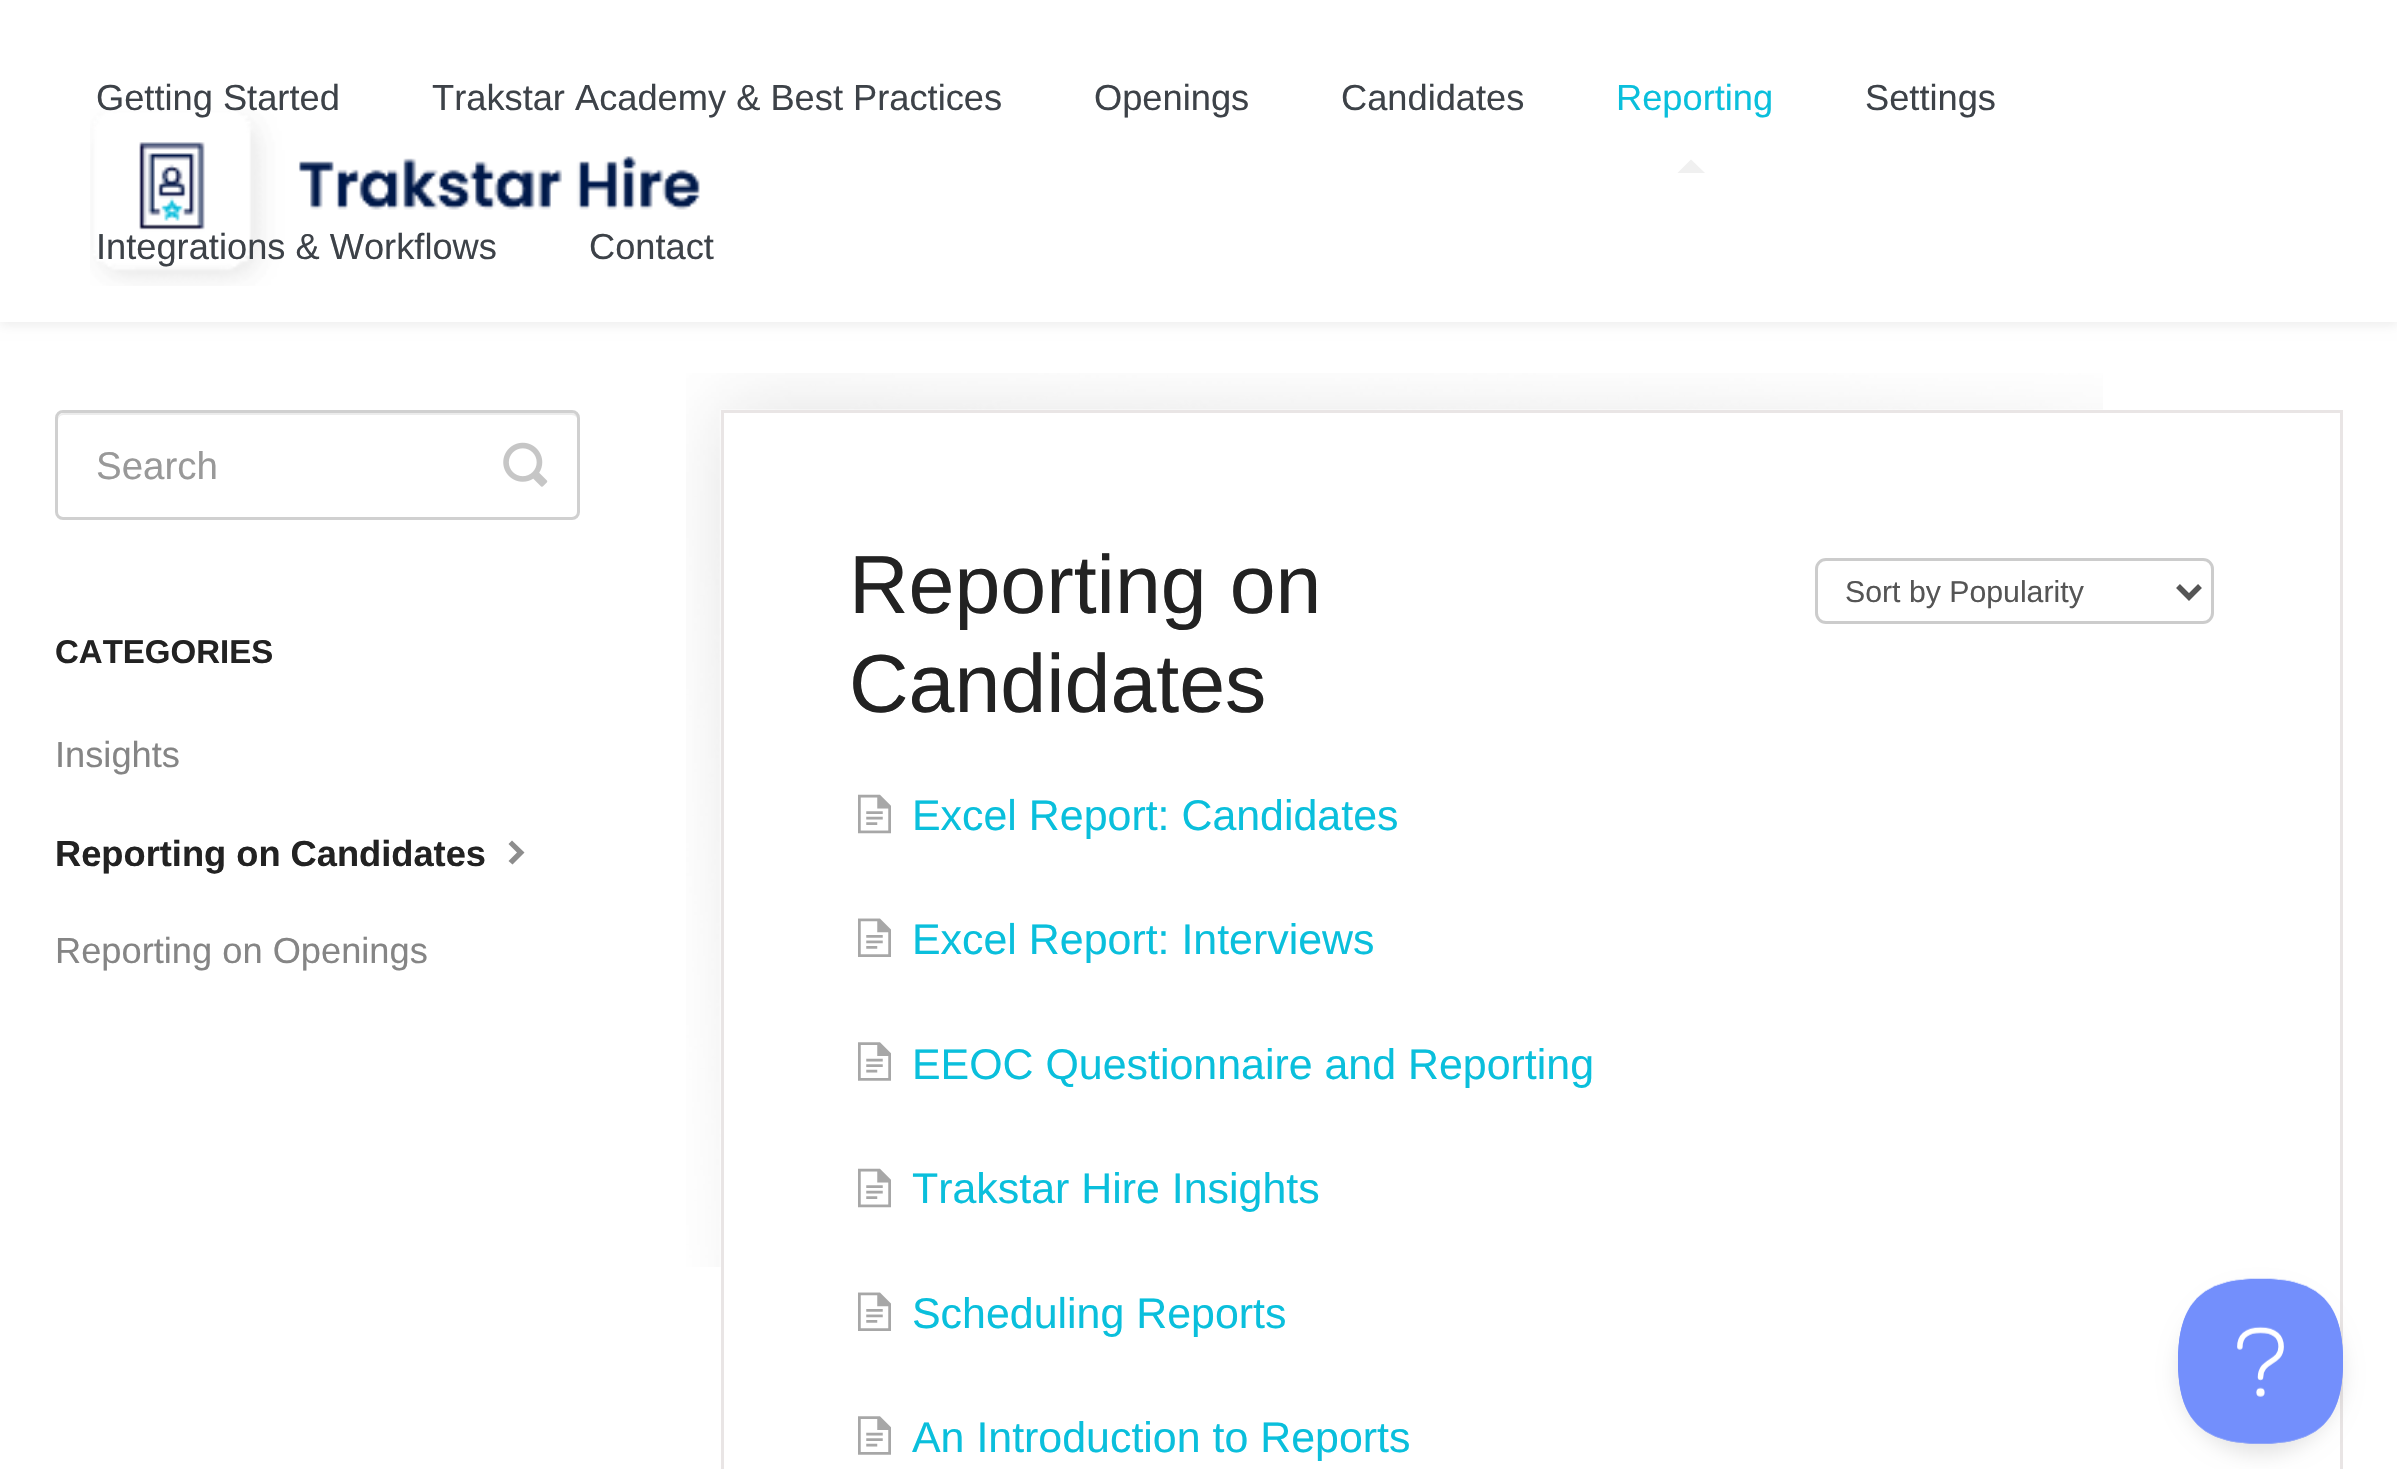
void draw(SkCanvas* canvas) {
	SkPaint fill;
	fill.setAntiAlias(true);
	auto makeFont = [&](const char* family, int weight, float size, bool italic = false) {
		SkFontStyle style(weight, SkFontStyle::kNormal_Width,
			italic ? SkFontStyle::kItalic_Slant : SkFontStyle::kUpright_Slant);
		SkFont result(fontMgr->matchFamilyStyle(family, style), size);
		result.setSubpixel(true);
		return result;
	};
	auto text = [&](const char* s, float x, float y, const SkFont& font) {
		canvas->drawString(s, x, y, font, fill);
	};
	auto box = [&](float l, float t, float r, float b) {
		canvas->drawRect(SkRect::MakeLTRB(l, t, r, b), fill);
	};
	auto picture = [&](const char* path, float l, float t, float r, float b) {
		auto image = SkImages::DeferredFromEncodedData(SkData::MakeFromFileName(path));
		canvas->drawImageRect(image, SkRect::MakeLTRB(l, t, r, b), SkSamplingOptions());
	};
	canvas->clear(0xFFFFFFFF);
	fill.setColor(0x12000000);
	fill.setMaskFilter(SkMaskFilter::MakeBlur(kNormal_SkBlurStyle, 5.5f));
	canvas->drawRect(SkRect::MakeLTRB(0, 3, 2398, 325), fill);
	fill.setMaskFilter(nullptr);
	fill.setColor(0xFFFFFFFF);
	box(0, 0, 2397, 322);
	fill.setColor(0xFFF0F0F0);
	canvas->drawPath(SkPathBuilder().moveTo(1705, 173).lineTo(1677.5f, 173).lineTo(1691, 159.5f).close().detach(), fill);
	picture("image0.png", 90, 109, 700, 286);
	fill.setColor(0xFFECECEC);
	canvas->drawPath(SkPathBuilder().moveTo(63, 415).lineTo(572, 415).cubicTo(575, 415, 578, 418, 578, 421).lineTo(578, 419).cubicTo(578, 416, 575, 413, 572, 413).lineTo(64, 413).cubicTo(61, 413, 58, 416, 58, 419).lineTo(58, 421).cubicTo(58, 418, 60, 415, 63, 415).close().detach(), fill);
	fill.setStyle(SkPaint::kStroke_Style);
	fill.setStrokeWidth(3);
	fill.setColor(0xFFD0D0D0);
	canvas->drawRoundRect(SkRect::MakeLTRB(56.5f, 411.5f, 578.5f, 518.5f), 6.5f, 6.5f, fill);
	picture("image1.png", 503, 442, 548, 487);
	fill.setStyle(SkPaint::kFill_Style);
	fill.setColor(0xFF8D8D8D);
	canvas->drawPath(SkPathBuilder().moveTo(512, 840.5f).lineTo(508.5f, 844).lineTo(517, 852.5f).lineTo(508.5f, 861).lineTo(512.5f, 864.5f).lineTo(524.5f, 852.5f).close().detach(), fill);
	picture("image2.png", 686, 373, 2103, 1267);
	fill.setStyle(SkPaint::kStroke_Style);
	fill.setColor(0xFFE9E5E5);
	canvas->drawRect(SkRect::MakeLTRB(722.5f, 411.5f, 2341.5f, 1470.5f), fill);
	fill.setColor(0xFFCCCCCC);
	canvas->drawRoundRect(SkRect::MakeLTRB(1816.5f, 559.5f, 2212.5f, 622.5f), 9.5f, 9.5f, fill);
	fill.setStrokeWidth(5.5f);
	fill.setColor(0xFF555555);
	canvas->drawPath(SkPathBuilder().moveTo(2178, 586).lineTo(2189, 597).lineTo(2200, 586).detach(), fill);
	picture("image3.png", 858, 794, 891, 834);
	picture("image4.png", 858, 918, 891, 957);
	picture("image5.png", 858, 1042, 891, 1081);
	picture("image3.png", 858, 1168, 891, 1208);
	picture("image4.png", 858, 1292, 891, 1331);
	picture("image5.png", 858, 1416, 891, 1455);
	fill.setStyle(SkPaint::kFill_Style);
	fill.setColor(0x1A000000);
	fill.setMaskFilter(SkMaskFilter::MakeBlur(kNormal_SkBlurStyle, 9.5f));
	canvas->drawRoundRect(SkRect::MakeLTRB(2178, 1290, 2343, 1455), 82.5f, 82.5f, fill);
	fill.setMaskFilter(nullptr);
	picture("image6.png", 2178, 1278, 2343, 1444);
	auto font1 = makeFont("Liberation Sans", 400, 36.25f);
	fill.setColor(0xFF3D4248);
	text("Getting Started", 96, 110, font1);
	text("Trakstar Academy & Best Practices", 432, 110, font1);
	text("Openings", 1094, 110, font1);
	text("Candidates", 1341, 110, font1);
	fill.setColor(0xFF0ABFDC);
	text("Reporting", 1616, 110, font1);
	fill.setColor(0xFF3D4248);
	text("Settings", 1865, 110, font1);
	text("Integrations & Workflows", 96, 259, font1);
	text("Contact", 589, 259, font1);
	auto font2 = makeFont("Liberation Sans", 400, 38.5f);
	fill.setColor(0xFF999999);
	text("Search", 96, 479, font2);
	auto font3 = makeFont("Liberation Sans", 700, 33);
	fill.setColor(0xFF222222);
	text("CATEGORIES", 55, 663, font3);
	fill.setColor(0xFF858585);
	text("Insights", 55, 767, font1);
	auto font4 = makeFont("Liberation Sans", 700, 36.25f);
	fill.setColor(0xFF222222);
	text("Reporting on Candidates", 55, 866, font4);
	fill.setColor(0xFF858585);
	text("Reporting on Openings", 55, 963, font1);
	auto font5 = makeFont("Liberation Sans", 400, 82.5f);
	fill.setColor(0xFF222222);
	text("Reporting on", 849, 613, font5);
	text("Candidates", 849, 712, font5);
	auto font6 = makeFont("Liberation Sans", 400, 30.25f);
	fill.setColor(0xFF555555);
	text("Sort by Popularity", 1845, 602, font6);
	auto font7 = makeFont("Liberation Sans", 400, 42.9f);
	fill.setColor(0xFF0ABFDC);
	text("Excel Report: Candidates", 912, 830, font7);
	text("Excel Report: Interviews", 912, 954, font7);
	text("EEOC Questionnaire and Reporting", 912, 1079, font7);
	text("Trakstar Hire Insights", 912, 1203, font7);
	text("Scheduling Reports", 912, 1328, font7);
	text("An Introduction to Reports", 912, 1452, font7);
}
